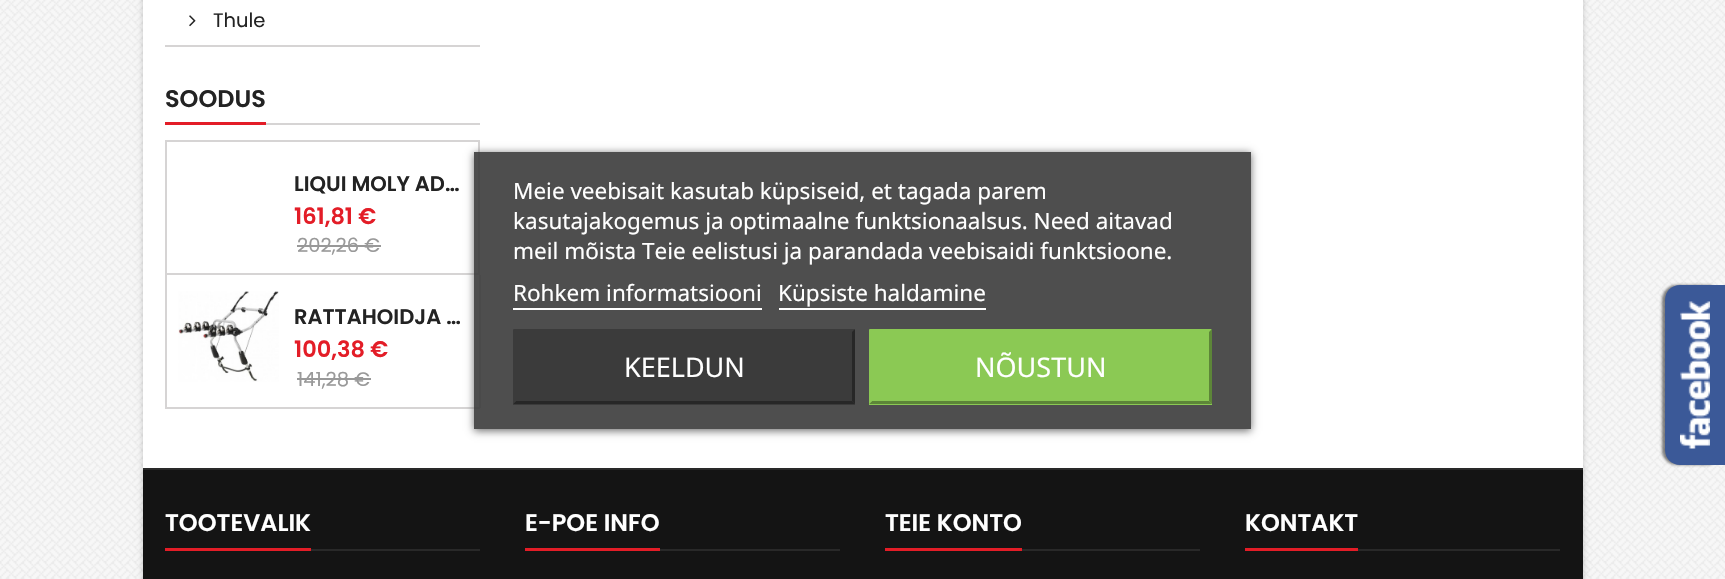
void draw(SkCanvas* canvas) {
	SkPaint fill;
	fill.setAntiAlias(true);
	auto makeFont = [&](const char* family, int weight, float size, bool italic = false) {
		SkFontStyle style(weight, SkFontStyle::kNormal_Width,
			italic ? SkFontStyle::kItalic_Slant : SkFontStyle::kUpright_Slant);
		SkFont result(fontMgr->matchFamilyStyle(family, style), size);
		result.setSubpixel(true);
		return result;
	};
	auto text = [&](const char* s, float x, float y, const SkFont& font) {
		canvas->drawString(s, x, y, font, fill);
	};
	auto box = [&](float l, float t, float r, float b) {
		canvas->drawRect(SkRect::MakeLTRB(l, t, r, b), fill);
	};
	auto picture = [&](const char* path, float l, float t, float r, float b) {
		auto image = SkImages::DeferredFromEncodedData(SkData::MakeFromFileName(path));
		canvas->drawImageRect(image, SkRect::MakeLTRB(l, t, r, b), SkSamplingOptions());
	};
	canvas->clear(0xFFF7F7F7);
	picture("image0.png", 0, 0, 1725, 579);
	fill.setColor(0x33000000);
	fill.setMaskFilter(SkMaskFilter::MakeBlur(kNormal_SkBlurStyle, 3));
	canvas->drawRect(SkRect::MakeLTRB(143, -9, 1583, 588), fill);
	fill.setMaskFilter(nullptr);
	fill.setColor(0xFFFFFFFF);
	box(143, 0, 1583, 468);
	fill.setColor(0xFFD6D4D4);
	box(165, 45, 480, 47);
	picture("image1.png", 189, 15, 196, 27);
	box(266, 123, 480, 125);
	fill.setColor(0xFFE31D27);
	box(165, 122, 266, 125);
	fill.setStyle(SkPaint::kStroke_Style);
	fill.setStrokeWidth(2);
	fill.setColor(0xFFD6D4D4);
	canvas->drawRect(SkRect::MakeLTRB(166, 141, 479, 274), fill);
	fill.setStyle(SkPaint::kFill_Style);
	fill.setColor(0xFF999999);
	box(297, 245, 381, 247);
	fill.setColor(0xFFD6D4D4);
	box(479, 275, 481, 408);
	box(165, 407, 480, 409);
	box(165, 275, 167, 408);
	picture("image2.png", 178, 291, 279, 382);
	fill.setColor(0xFF999999);
	box(297, 378, 371, 380);
	fill.setColor(0x80000000);
	fill.setMaskFilter(SkMaskFilter::MakeBlur(kNormal_SkBlurStyle, 1.5f));
	canvas->drawRoundRect(SkRect::MakeLTRB(1662, 285, 1722, 465), 15, 15, fill);
	fill.setMaskFilter(nullptr);
	fill.setColor(0xFF3B5998);
	canvas->drawPath(SkPathBuilder().moveTo(1680, 285).lineTo(1725, 285).lineTo(1725, 465).lineTo(1680, 465).cubicTo(1671.5f, 465, 1665, 458.5f, 1665, 450).lineTo(1665, 300).cubicTo(1665, 291.5f, 1671.5f, 285, 1680, 285).close().detach(), fill);
	picture("image3.png", 1680, 301, 1710, 449);
	fill.setColor(0xFF141414);
	box(143, 470, 1583, 579);
	fill.setColor(0xFF292929);
	box(143, 468, 1583, 470);
	canvas->save();
	canvas->clipPath(SkPathBuilder(SkPathFillType::kEvenOdd).moveTo(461, 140).lineTo(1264, 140).lineTo(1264, 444).lineTo(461, 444).close().moveTo(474, 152).lineTo(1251, 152).lineTo(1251, 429).lineTo(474, 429).close().detach(), true);
	fill.setColor(0xFF707070);
	fill.setMaskFilter(SkMaskFilter::MakeBlur(kNormal_SkBlurStyle, 4));
	canvas->drawRect(SkRect::MakeLTRB(474, 153, 1251, 431), fill);
	fill.setMaskFilter(nullptr);
	canvas->restore();
	fill.setColor(0xE63B3B3B);
	box(474, 152, 1251, 429);
	fill.setColor(0xFFFFFFFF);
	box(513, 308, 762, 310);
	box(779, 308, 986, 310);
	fill.setColor(0xFF3B3B3B);
	box(513, 330, 855, 405);
	canvas->drawPath(SkPathBuilder().moveTo(513, 329).lineTo(855, 329).lineTo(852, 332).lineTo(516, 332).close().detach(), fill);
	fill.setColor(0xFF272727);
	canvas->drawPath(SkPathBuilder().moveTo(855, 329).lineTo(855, 404).lineTo(852, 401).lineTo(852, 332).close().detach(), fill);
	canvas->drawPath(SkPathBuilder().moveTo(855, 404).lineTo(513, 404).lineTo(516, 401).lineTo(852, 401).close().detach(), fill);
	fill.setColor(0xFF3B3B3B);
	canvas->drawPath(SkPathBuilder().moveTo(513, 404).lineTo(513, 329).lineTo(516, 332).lineTo(516, 401).close().detach(), fill);
	fill.setColor(0xFF8BC954);
	box(869, 330, 1212, 405);
	canvas->drawPath(SkPathBuilder().moveTo(869, 329).lineTo(1212, 329).lineTo(1209, 332).lineTo(872, 332).close().detach(), fill);
	fill.setColor(0xFF5D8638);
	canvas->drawPath(SkPathBuilder().moveTo(1212, 329).lineTo(1212, 404).lineTo(1209, 401).lineTo(1209, 332).close().detach(), fill);
	canvas->drawPath(SkPathBuilder().moveTo(1212, 404).lineTo(869, 404).lineTo(872, 401).lineTo(1209, 401).close().detach(), fill);
	fill.setColor(0xFF8BC954);
	canvas->drawPath(SkPathBuilder().moveTo(869, 404).lineTo(869, 329).lineTo(872, 332).lineTo(872, 401).close().detach(), fill);
	fill.setColor(0xFF292929);
	box(311, 549, 480, 551);
	fill.setColor(0xFFE31D27);
	box(165, 548, 311, 551);
	fill.setColor(0xFF292929);
	box(660, 549, 840, 551);
	fill.setColor(0xFFE31D27);
	box(525, 548, 660, 551);
	fill.setColor(0xFF292929);
	box(1022, 549, 1200, 551);
	fill.setColor(0xFFE31D27);
	box(885, 548, 1022, 551);
	fill.setColor(0xFF292929);
	box(1358, 549, 1560, 551);
	fill.setColor(0xFFE31D27);
	box(1245, 548, 1358, 551);
	auto font1 = makeFont("Poppins", 400, 19.5f);
	fill.setColor(0xFF232323);
	text("Thule", 213, 27, font1);
	auto font2 = makeFont("Poppins", 600, 24);
	text("SOODUS", 165, 107, font2);
	auto font3 = makeFont("Poppins", 600, 21);
	text("LIQUI MOLY AD…", 294, 191, font3);
	auto font4 = makeFont("Poppins", 600, 22.5f);
	fill.setColor(0xFFE31D27);
	text("161,81 €", 294, 224, font4);
	fill.setColor(0xFF999999);
	text("202,26 €", 297, 252, font1);
	fill.setColor(0xFF232323);
	text("RATTAHOIDJA …", 294, 324, font3);
	fill.setColor(0xFFE31D27);
	text("100,38 €", 294, 357, font4);
	fill.setColor(0xFF999999);
	text("141,28 €", 297, 386, font1);
	auto font5 = makeFont("Noto Sans", 400, 22.5f);
	fill.setColor(0xFFFFFFFF);
	text("Meie veebisait kasutab küpsiseid, et tagada parem", 513, 199, font5);
	text("kasutajakogemus ja optimaalne funktsionaalsus. Need aitavad", 513, 229, font5);
	text("meil mõista Teie eelistusi ja parandada veebisaidi funktsioone.", 513, 259, font5);
	text("Rohkem informatsiooni", 513, 301, font5);
	text("Küpsiste haldamine", 778, 301, font5);
	auto font6 = makeFont("Noto Sans", 400, 27);
	text("KEELDUN", 624, 377, font6);
	text("NÕUSTUN", 975, 377, font6);
	text("TOOTEVALIK", 165, 531, font2);
	text("E-POE INFO", 525, 531, font2);
	text("TEIE KONTO", 885, 531, font2);
	text("KONTAKT", 1245, 531, font2);
}
